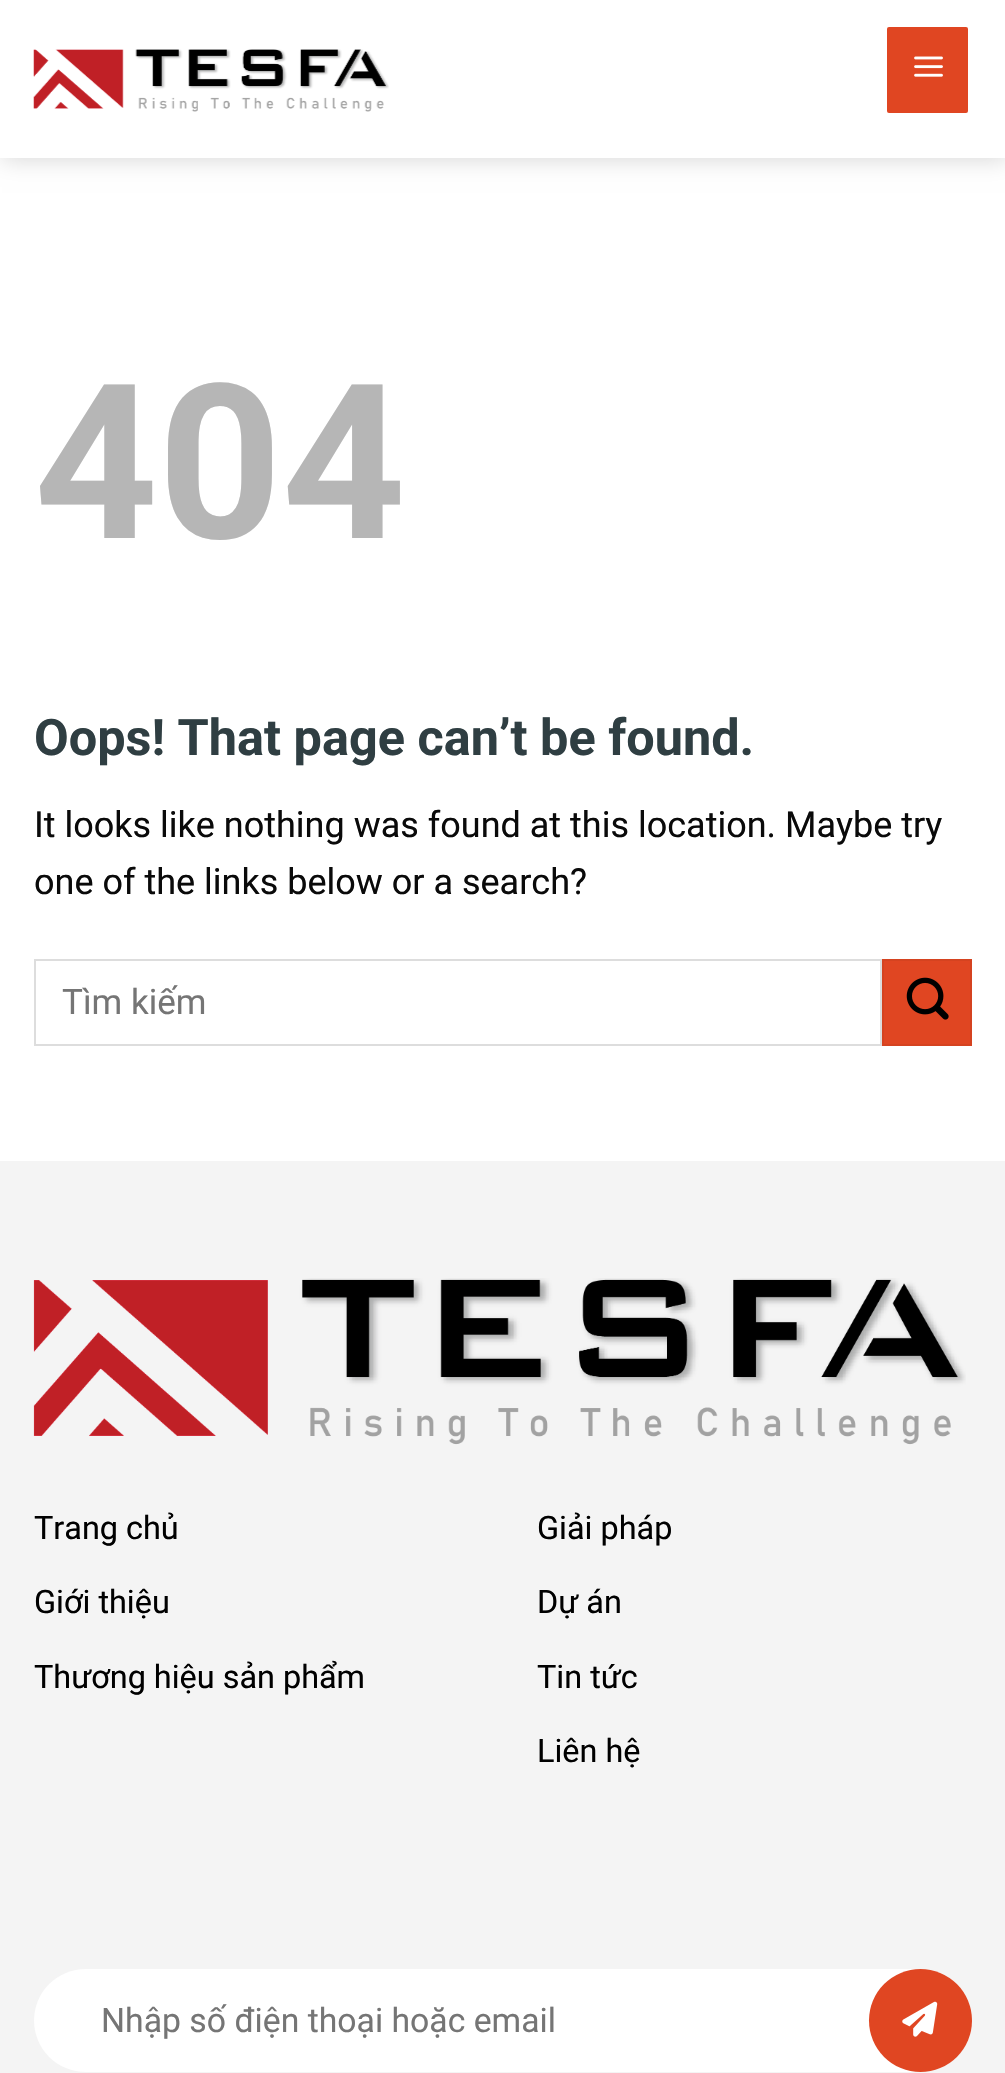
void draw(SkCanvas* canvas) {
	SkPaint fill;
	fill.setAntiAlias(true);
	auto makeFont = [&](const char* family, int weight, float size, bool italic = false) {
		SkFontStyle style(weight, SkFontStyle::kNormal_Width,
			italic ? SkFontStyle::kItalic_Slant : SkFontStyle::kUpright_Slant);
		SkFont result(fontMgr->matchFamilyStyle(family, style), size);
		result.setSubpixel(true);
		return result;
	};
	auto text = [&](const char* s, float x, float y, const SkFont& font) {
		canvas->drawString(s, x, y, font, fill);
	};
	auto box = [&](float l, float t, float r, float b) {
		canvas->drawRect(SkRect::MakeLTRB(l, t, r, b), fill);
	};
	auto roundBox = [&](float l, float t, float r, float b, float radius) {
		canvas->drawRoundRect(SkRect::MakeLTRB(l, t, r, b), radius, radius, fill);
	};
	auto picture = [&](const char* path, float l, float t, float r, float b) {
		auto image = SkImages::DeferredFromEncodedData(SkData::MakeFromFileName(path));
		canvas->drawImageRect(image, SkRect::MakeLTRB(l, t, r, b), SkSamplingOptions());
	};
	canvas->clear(0xFFFFFFFF);
	fill.setColor(0x26000000);
	fill.setMaskFilter(SkMaskFilter::MakeBlur(kNormal_SkBlurStyle, 11));
	canvas->drawRect(SkRect::MakeLTRB(2, 2, 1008, 160), fill);
	fill.setMaskFilter(nullptr);
	fill.setColor(0xFFFFFFFF);
	box(0, 0, 1005, 158);
	picture("image0.png", 33, 49, 389, 112);
	fill.setColor(0xFFE04622);
	roundBox(887, 27, 968, 113, 2);
	picture("image1.png", 914, 56, 943, 77);
	fill.setStyle(SkPaint::kStroke_Style);
	fill.setStrokeWidth(2);
	fill.setColor(0xFFDDDDDD);
	canvas->drawRect(SkRect::MakeLTRB(35, 960, 881, 1045), fill);
	fill.setStyle(SkPaint::kFill_Style);
	fill.setColor(0xFFE04622);
	canvas->drawRect(SkRect::MakeLTRB(883, 960, 971, 1045), fill);
	fill.setStyle(SkPaint::kStroke_Style);
	fill.setColor(0xFFD54320);
	canvas->drawRect(SkRect::MakeLTRB(883, 960, 971, 1045), fill);
	picture("image2.png", 906, 977, 949, 1020);
	fill.setStyle(SkPaint::kFill_Style);
	fill.setColor(0xFFF4F4F4);
	box(0, 1161, 1005, 2073);
	picture("image3.png", 33, 1278, 966, 1445);
	fill.setColor(0xFFFFFFFF);
	roundBox(34, 1969, 972, 2072, 51.5f);
	fill.setColor(0xFFE04622);
	canvas->drawCircle(920.5f, 2020.5f, 51.5f, fill);
	picture("image4.png", 902, 2001, 938, 2037);
	auto font1 = makeFont("Roboto", 700, 216);
	fill.setColor(0xFFB6B6B6);
	text("404", 34, 538, font1);
	auto font2 = makeFont("Roboto", 700, 50.4f);
	fill.setColor(0xFF2F3E42);
	text("Oops! That page can’t be found.", 34, 755, font2);
	auto font3 = makeFont("Roboto", 400, 36);
	fill.setColor(0xFF0A0A0A);
	text("It looks like nothing was found at this location. Maybe try", 34, 837, font3);
	text("one of the links below or a search?", 34, 894, font3);
	auto font4 = makeFont("Roboto", 400, 35);
	fill.setColor(0xFF757575);
	text("Tìm kiếm", 62, 1014, font4);
	auto font5 = makeFont("Roboto", 400, 32.4f);
	fill.setColor(0xFF000000);
	text("Trang chủ", 34, 1539, font5);
	text("Giới thiệu", 34, 1613, font5);
	text("Thương hiệu sản phẩm", 34, 1688, font5);
	text("Giải pháp", 537, 1539, font5);
	text("Dự án", 537, 1613, font5);
	text("Tin tức", 537, 1688, font5);
	text("Liên hệ", 537, 1762, font5);
	auto font6 = makeFont("Roboto", 400, 33.75f);
	fill.setColor(0xFF757575);
	text("Nhập số điện thoại hoặc email", 101, 2032, font6);
}
